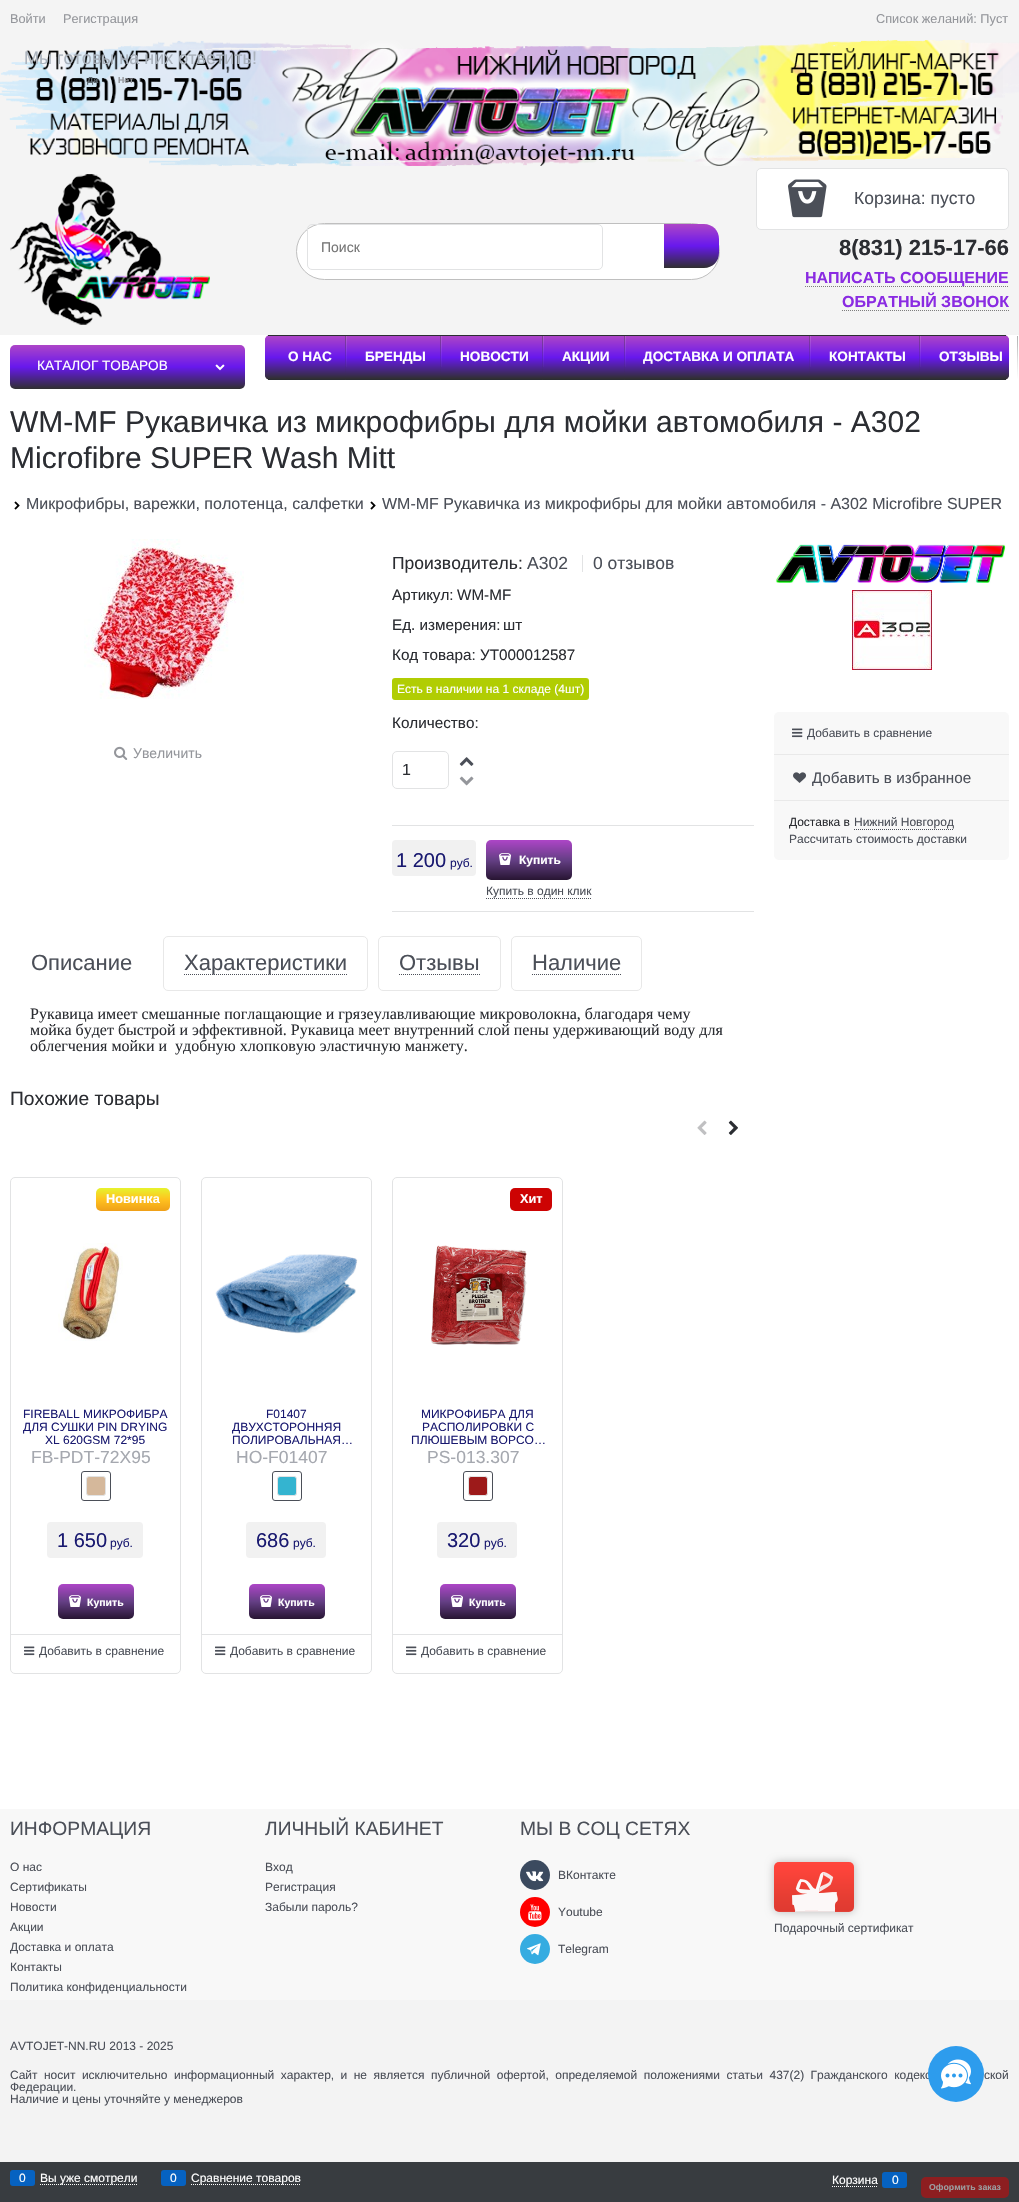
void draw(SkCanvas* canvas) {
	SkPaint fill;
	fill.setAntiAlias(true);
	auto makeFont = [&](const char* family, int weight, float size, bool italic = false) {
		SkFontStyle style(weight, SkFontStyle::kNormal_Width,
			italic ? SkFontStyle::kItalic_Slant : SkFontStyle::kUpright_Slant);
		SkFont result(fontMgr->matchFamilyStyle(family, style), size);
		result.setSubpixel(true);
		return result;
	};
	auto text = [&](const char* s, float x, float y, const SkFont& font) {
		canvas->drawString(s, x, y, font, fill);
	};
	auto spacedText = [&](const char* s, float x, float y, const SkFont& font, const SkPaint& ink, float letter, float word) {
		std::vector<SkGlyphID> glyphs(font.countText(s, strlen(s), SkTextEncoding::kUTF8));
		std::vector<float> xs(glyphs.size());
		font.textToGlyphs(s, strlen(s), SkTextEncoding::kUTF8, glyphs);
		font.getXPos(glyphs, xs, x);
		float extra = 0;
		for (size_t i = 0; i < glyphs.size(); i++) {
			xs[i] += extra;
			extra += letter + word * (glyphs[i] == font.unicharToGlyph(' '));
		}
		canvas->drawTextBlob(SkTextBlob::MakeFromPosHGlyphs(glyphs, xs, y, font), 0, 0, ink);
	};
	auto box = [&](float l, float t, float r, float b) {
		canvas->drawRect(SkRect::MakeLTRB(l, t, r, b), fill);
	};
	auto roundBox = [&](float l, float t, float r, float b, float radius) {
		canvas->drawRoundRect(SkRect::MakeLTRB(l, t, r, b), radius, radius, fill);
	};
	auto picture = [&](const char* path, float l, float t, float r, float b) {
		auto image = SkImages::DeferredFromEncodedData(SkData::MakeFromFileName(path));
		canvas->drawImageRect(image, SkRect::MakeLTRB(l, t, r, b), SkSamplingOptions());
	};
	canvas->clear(0xFFFFFFFF);
	fill.setColor(0xFFF4F4F4);
	box(0, 0, 1019, 335);
	picture("image0.png", 0, 40, 1019, 166);
	picture("image1.png", 10, 174, 210, 325);
	fill.setColor(0xFFFFFFFF);
	canvas->drawRoundRect(SkRect::MakeLTRB(296.5f, 223.5f, 719.5f, 279.5f), 28, 28, fill);
	fill.setStyle(SkPaint::kStroke_Style);
	fill.setStrokeWidth(1);
	fill.setColor(0xFFBFBFBF);
	canvas->drawRoundRect(SkRect::MakeLTRB(296.5f, 223.5f, 719.5f, 279.5f), 28, 28, fill);
	fill.setColor(0xFFE2E3E4);
	canvas->drawRoundRect(SkRect::MakeLTRB(307.5f, 224.5f, 602.5f, 269.5f), 4.5f, 4.5f, fill);
	fill.setStyle(SkPaint::kFill_Style);
	{
		const SkColor colors[] = {0xFFAD45C7, 0xFF6718ED, 0xFF303030};
		const float stops[] = {0, 0.5f, 1};
		const SkPoint ends[] = {{692, 224}, {692, 268}};
		fill.setShader(SkGradientShader::MakeLinear(ends, colors, stops, 3, SkTileMode::kClamp));
		fill.setAlpha(255);
	}
	canvas->drawPath(SkPathBuilder().moveTo(664, 224).lineTo(704, 224).cubicTo(712.5f, 224, 719, 230.5f, 719, 239).lineTo(719, 253).cubicTo(719, 261.5f, 712.5f, 268, 704, 268).lineTo(664, 268).close().detach(), fill);
	fill.setShader(nullptr);
	fill.setColor(0xFFFFFFFF);
	canvas->drawRoundRect(SkRect::MakeLTRB(756.5f, 168.5f, 1008.5f, 229.5f), 4.5f, 4.5f, fill);
	fill.setStyle(SkPaint::kStroke_Style);
	fill.setColor(0xFFE2E3E4);
	canvas->drawRoundRect(SkRect::MakeLTRB(756.5f, 168.5f, 1008.5f, 229.5f), 4.5f, 4.5f, fill);
	picture("image2.png", 788, 179, 827, 218);
	fill.setColor(0xFF7D7D7D);
	fill.setPathEffect(SkDashPathEffect::Make({{1, 1}}, 0));
	canvas->drawPath(SkPathBuilder().moveTo(805, 286.5f).lineTo(1009, 286.5f).detach(), fill);
	fill.setPathEffect(nullptr);
	fill.setPathEffect(SkDashPathEffect::Make({{1, 1}}, 0));
	canvas->drawPath(SkPathBuilder().moveTo(842, 310.5f).lineTo(1009, 310.5f).detach(), fill);
	fill.setPathEffect(nullptr);
	fill.setStyle(SkPaint::kFill_Style);
	{
		const SkColor colors[] = {0xFFAD45C7, 0xFF6718ED, 0xFF303030};
		const float stops[] = {0, 0.5f, 1};
		const SkPoint ends[] = {{637, 335}, {637, 380}};
		fill.setShader(SkGradientShader::MakeLinear(ends, colors, stops, 3, SkTileMode::kClamp));
		fill.setAlpha(255);
	}
	roundBox(265, 335, 1009, 380, 5);
	canvas->save();
	canvas->clipPath(SkPathBuilder().moveTo(271, 335).lineTo(1003, 335).cubicTo(1006.5f, 335, 1009, 337.5f, 1009, 341).lineTo(1009, 374).cubicTo(1009, 377.5f, 1006.5f, 380, 1003, 380).lineTo(271, 380).cubicTo(267.5f, 380, 265, 377.5f, 265, 374).lineTo(265, 341).cubicTo(265, 337.5f, 267.5f, 335, 271, 335).close().detach(), true);
	{
		const SkColor colors[] = {0xFFAD45C7, 0xFF6718ED, 0xFF303030};
		const float stops[] = {0, 0.5f, 1};
		const SkPoint ends[] = {{637, 336}, {637, 379}};
		fill.setShader(SkGradientShader::MakeLinear(ends, colors, stops, 3, SkTileMode::kClamp));
		fill.setAlpha(255);
	}
	box(265, 336, 1009, 379);
	canvas->restore();
	fill.setShader(nullptr);
	fill.setColor(0xFF2B2D32);
	box(268, 335, 1006, 336);
	box(268, 379, 1006, 380);
	{
		const SkColor colors[] = {0x24FFFFFF, 0x05FFFFFF, 0x00FFFFFF};
		const float stops[] = {0, 0.72f, 1};
		const SkPoint ends[] = {{347, 336}, {347, 380}};
		fill.setShader(SkGradientShader::MakeLinear(ends, colors, stops, 3, SkTileMode::kClamp));
		fill.setAlpha(255);
	}
	box(346, 336, 347, 367);
	{
		const SkColor colors[] = {0x63393939, 0x54393939, 0x1F393939, 0x03393939, 0x03FFFFFF, 0x00FFFFFF};
		const float stops[] = {0, 0.17f, 0.61f, 0.96f, 0.98f, 1};
		const SkPoint ends[] = {{346, 336}, {346, 380}};
		fill.setShader(SkGradientShader::MakeLinear(ends, colors, stops, 6, SkTileMode::kClamp));
		fill.setAlpha(255);
	}
	box(345, 336, 346, 380);
	{
		const SkColor colors[] = {0x24FFFFFF, 0x05FFFFFF, 0x00FFFFFF};
		const float stops[] = {0, 0.72f, 1};
		const SkPoint ends[] = {{442, 336}, {442, 380}};
		fill.setShader(SkGradientShader::MakeLinear(ends, colors, stops, 3, SkTileMode::kClamp));
		fill.setAlpha(255);
	}
	box(441, 336, 442, 367);
	{
		const SkColor colors[] = {0x63393939, 0x54393939, 0x1F393939, 0x03393939, 0x03FFFFFF, 0x00FFFFFF};
		const float stops[] = {0, 0.17f, 0.61f, 0.96f, 0.98f, 1};
		const SkPoint ends[] = {{441, 336}, {441, 380}};
		fill.setShader(SkGradientShader::MakeLinear(ends, colors, stops, 6, SkTileMode::kClamp));
		fill.setAlpha(255);
	}
	box(440, 336, 441, 380);
	{
		const SkColor colors[] = {0x24FFFFFF, 0x05FFFFFF, 0x00FFFFFF};
		const float stops[] = {0, 0.72f, 1};
		const SkPoint ends[] = {{544, 336}, {544, 380}};
		fill.setShader(SkGradientShader::MakeLinear(ends, colors, stops, 3, SkTileMode::kClamp));
		fill.setAlpha(255);
	}
	box(543, 336, 544, 367);
	{
		const SkColor colors[] = {0x63393939, 0x54393939, 0x1F393939, 0x03393939, 0x03FFFFFF, 0x00FFFFFF};
		const float stops[] = {0, 0.17f, 0.61f, 0.96f, 0.98f, 1};
		const SkPoint ends[] = {{543, 336}, {543, 380}};
		fill.setShader(SkGradientShader::MakeLinear(ends, colors, stops, 6, SkTileMode::kClamp));
		fill.setAlpha(255);
	}
	box(542, 336, 543, 380);
	{
		const SkColor colors[] = {0x24FFFFFF, 0x05FFFFFF, 0x00FFFFFF};
		const float stops[] = {0, 0.72f, 1};
		const SkPoint ends[] = {{626, 336}, {626, 380}};
		fill.setShader(SkGradientShader::MakeLinear(ends, colors, stops, 3, SkTileMode::kClamp));
		fill.setAlpha(255);
	}
	box(625, 336, 626, 367);
	{
		const SkColor colors[] = {0x63393939, 0x54393939, 0x1F393939, 0x03393939, 0x03FFFFFF, 0x00FFFFFF};
		const float stops[] = {0, 0.17f, 0.61f, 0.96f, 0.98f, 1};
		const SkPoint ends[] = {{625, 336}, {625, 380}};
		fill.setShader(SkGradientShader::MakeLinear(ends, colors, stops, 6, SkTileMode::kClamp));
		fill.setAlpha(255);
	}
	box(624, 336, 625, 380);
	{
		const SkColor colors[] = {0x24FFFFFF, 0x05FFFFFF, 0x00FFFFFF};
		const float stops[] = {0, 0.72f, 1};
		const SkPoint ends[] = {{811, 336}, {811, 380}};
		fill.setShader(SkGradientShader::MakeLinear(ends, colors, stops, 3, SkTileMode::kClamp));
		fill.setAlpha(255);
	}
	box(810, 336, 811, 367);
	{
		const SkColor colors[] = {0x63393939, 0x54393939, 0x1F393939, 0x03393939, 0x03FFFFFF, 0x00FFFFFF};
		const float stops[] = {0, 0.17f, 0.61f, 0.96f, 0.98f, 1};
		const SkPoint ends[] = {{810, 336}, {810, 380}};
		fill.setShader(SkGradientShader::MakeLinear(ends, colors, stops, 6, SkTileMode::kClamp));
		fill.setAlpha(255);
	}
	box(809, 336, 810, 380);
	{
		const SkColor colors[] = {0x24FFFFFF, 0x05FFFFFF, 0x00FFFFFF};
		const float stops[] = {0, 0.72f, 1};
		const SkPoint ends[] = {{921, 336}, {921, 380}};
		fill.setShader(SkGradientShader::MakeLinear(ends, colors, stops, 3, SkTileMode::kClamp));
		fill.setAlpha(255);
	}
	box(920, 336, 921, 367);
	{
		const SkColor colors[] = {0x63393939, 0x54393939, 0x1F393939, 0x03393939, 0x03FFFFFF, 0x00FFFFFF};
		const float stops[] = {0, 0.17f, 0.61f, 0.96f, 0.98f, 1};
		const SkPoint ends[] = {{920, 336}, {920, 380}};
		fill.setShader(SkGradientShader::MakeLinear(ends, colors, stops, 6, SkTileMode::kClamp));
		fill.setAlpha(255);
	}
	box(919, 336, 920, 380);
	{
		const SkColor colors[] = {0xFFB2B2B2, 0xFFBEBEBE, 0xFFE7E7E7, 0xFFFDFDFD, 0xFFFFFFFF, 0xFFFFFFFF};
		const float stops[] = {0, 0.17f, 0.61f, 0.96f, 0.98f, 1};
		const SkPoint ends[] = {{1018, 336}, {1018, 380}};
		fill.setShader(SkGradientShader::MakeLinear(ends, colors, stops, 6, SkTileMode::kClamp));
		fill.setAlpha(255);
	}
	box(1017, 336, 1018, 380);
	{
		const SkColor colors[] = {0xFFAD45C7, 0xFF6718ED, 0xFF303030};
		const float stops[] = {0, 0.5f, 1};
		const SkPoint ends[] = {{128, 345}, {128, 389}};
		fill.setShader(SkGradientShader::MakeLinear(ends, colors, stops, 3, SkTileMode::kClamp));
		fill.setAlpha(255);
	}
	roundBox(10, 345, 245, 389, 5);
	picture("image3.png", 215, 364, 225, 371);
	picture("image4.png", 14, 501, 20, 510);
	picture("image4.png", 370, 501, 376, 510);
	picture("image5.png", 84, 539, 244, 699);
	picture("image6.png", 114, 746, 128, 760);
	fill.setShader(nullptr);
	fill.setColor(0xFFE2E3E4);
	box(582, 555, 583, 572);
	fill.setColor(0xFFB1CD03);
	roundBox(392, 678, 589, 700, 3);
	fill.setStyle(SkPaint::kStroke_Style);
	fill.setColor(0xFFE2E3E4);
	canvas->drawRoundRect(SkRect::MakeLTRB(392.5f, 751.5f, 448.5f, 788.5f), 4.5f, 4.5f, fill);
	picture("image7.png", 459, 757, 474, 766);
	picture("image8.png", 459, 776, 474, 786);
	fill.setStyle(SkPaint::kFill_Style);
	box(392, 825, 754, 826);
	box(392, 911, 754, 912);
	fill.setColor(0xFFF1F1F1);
	roundBox(392, 840, 476, 876, 4);
	{
		const SkColor colors[] = {0xFFAD45C7, 0xFF653F85, 0xFF271532};
		const float stops[] = {0, 0.5f, 1};
		const SkPoint ends[] = {{529, 840}, {529, 880}};
		fill.setShader(SkGradientShader::MakeLinear(ends, colors, stops, 3, SkTileMode::kClamp));
		fill.setAlpha(255);
	}
	roundBox(486, 840, 572, 880, 5);
	picture("image9.png", 499, 853, 511, 865);
	fill.setStyle(SkPaint::kStroke_Style);
	fill.setShader(nullptr);
	fill.setColor(0xFF4B4F58);
	fill.setPathEffect(SkDashPathEffect::Make({{1, 1}}, 0));
	canvas->drawPath(SkPathBuilder().moveTo(486, 898.5f).lineTo(592, 898.5f).detach(), fill);
	fill.setPathEffect(nullptr);
	fill.setColor(0xFFE8E8E8);
	canvas->drawRoundRect(SkRect::MakeLTRB(163.5f, 936.5f, 367.5f, 990.5f), 4.5f, 4.5f, fill);
	fill.setColor(0xFF4B4F58);
	fill.setPathEffect(SkDashPathEffect::Make({{1, 1}}, 0));
	canvas->drawPath(SkPathBuilder().moveTo(184, 974.5f).lineTo(347, 974.5f).detach(), fill);
	fill.setPathEffect(nullptr);
	fill.setColor(0xFFE8E8E8);
	canvas->drawRoundRect(SkRect::MakeLTRB(378.5f, 936.5f, 500.5f, 990.5f), 4.5f, 4.5f, fill);
	fill.setColor(0xFF4B4F58);
	fill.setPathEffect(SkDashPathEffect::Make({{1, 1}}, 0));
	canvas->drawPath(SkPathBuilder().moveTo(399, 974.5f).lineTo(480, 974.5f).detach(), fill);
	fill.setPathEffect(nullptr);
	fill.setColor(0xFFE8E8E8);
	canvas->drawRoundRect(SkRect::MakeLTRB(511.5f, 936.5f, 641.5f, 990.5f), 4.5f, 4.5f, fill);
	fill.setColor(0xFF4B4F58);
	fill.setPathEffect(SkDashPathEffect::Make({{1, 1}}, 0));
	canvas->drawPath(SkPathBuilder().moveTo(532, 974.5f).lineTo(621, 974.5f).detach(), fill);
	fill.setPathEffect(nullptr);
	picture("image10.png", 697, 1120, 707, 1135);
	picture("image11.png", 728, 1120, 738, 1135);
	fill.setColor(0xFFE2E3E4);
	canvas->drawRoundRect(SkRect::MakeLTRB(10.5f, 1177.5f, 180.5f, 1673.5f), 4.5f, 4.5f, fill);
	fill.setStyle(SkPaint::kFill_Style);
	{
		const SkColor colors[] = {0xFFE7F32D, 0xFFFFC21F, 0xFFEFA018};
		const float stops[] = {0, 0.5f, 1};
		const SkPoint ends[] = {{133, 1188}, {133, 1211}};
		fill.setShader(SkGradientShader::MakeLinear(ends, colors, stops, 3, SkTileMode::kClamp));
		fill.setAlpha(255);
	}
	roundBox(96, 1188, 170, 1211, 5);
	picture("image12.png", 58, 1243, 123, 1341);
	fill.setStyle(SkPaint::kStroke_Style);
	fill.setShader(nullptr);
	fill.setColor(0xFF4B4F58);
	canvas->drawRoundRect(SkRect::MakeLTRB(81.5f, 1471.5f, 110.5f, 1500.5f), 2.5f, 2.5f, fill);
	fill.setStyle(SkPaint::kFill_Style);
	fill.setColor(0xFFD5B89B);
	canvas->drawRoundRect(SkRect::MakeLTRB(86.5f, 1476.5f, 105.5f, 1495.5f), 2.5f, 2.5f, fill);
	fill.setStyle(SkPaint::kStroke_Style);
	fill.setColor(0xFFE2E3E4);
	canvas->drawRoundRect(SkRect::MakeLTRB(86.5f, 1476.5f, 105.5f, 1495.5f), 2.5f, 2.5f, fill);
	fill.setStyle(SkPaint::kFill_Style);
	fill.setColor(0xFFF1F1F1);
	roundBox(47, 1522, 143, 1558, 4);
	{
		const SkColor colors[] = {0xFFAD45C7, 0xFF653F85, 0xFF271532};
		const float stops[] = {0, 0.5f, 1};
		const SkPoint ends[] = {{96, 1584}, {96, 1619}};
		fill.setShader(SkGradientShader::MakeLinear(ends, colors, stops, 3, SkTileMode::kClamp));
		fill.setAlpha(255);
	}
	roundBox(58, 1584, 134, 1619, 5);
	picture("image13.png", 69, 1595, 81, 1607);
	fill.setShader(nullptr);
	fill.setColor(0xFFE2E3E4);
	box(11, 1634, 180, 1635);
	picture("image14.png", 24, 1646, 35, 1656);
	fill.setStyle(SkPaint::kStroke_Style);
	canvas->drawRoundRect(SkRect::MakeLTRB(201.5f, 1177.5f, 371.5f, 1673.5f), 4.5f, 4.5f, fill);
	picture("image15.png", 215, 1254, 358, 1334);
	fill.setColor(0xFF4B4F58);
	canvas->drawRoundRect(SkRect::MakeLTRB(272.5f, 1471.5f, 301.5f, 1500.5f), 2.5f, 2.5f, fill);
	fill.setStyle(SkPaint::kFill_Style);
	fill.setColor(0xFF34B4D0);
	canvas->drawRoundRect(SkRect::MakeLTRB(277.5f, 1476.5f, 296.5f, 1495.5f), 2.5f, 2.5f, fill);
	fill.setStyle(SkPaint::kStroke_Style);
	fill.setColor(0xFFE2E3E4);
	canvas->drawRoundRect(SkRect::MakeLTRB(277.5f, 1476.5f, 296.5f, 1495.5f), 2.5f, 2.5f, fill);
	fill.setStyle(SkPaint::kFill_Style);
	fill.setColor(0xFFF1F1F1);
	roundBox(246, 1522, 326, 1558, 4);
	{
		const SkColor colors[] = {0xFFAD45C7, 0xFF653F85, 0xFF271532};
		const float stops[] = {0, 0.5f, 1};
		const SkPoint ends[] = {{287, 1584}, {287, 1619}};
		fill.setShader(SkGradientShader::MakeLinear(ends, colors, stops, 3, SkTileMode::kClamp));
		fill.setAlpha(255);
	}
	roundBox(249, 1584, 325, 1619, 5);
	picture("image13.png", 260, 1595, 272, 1607);
	fill.setShader(nullptr);
	fill.setColor(0xFFE2E3E4);
	box(202, 1634, 371, 1635);
	picture("image14.png", 215, 1646, 226, 1656);
	fill.setStyle(SkPaint::kStroke_Style);
	canvas->drawRoundRect(SkRect::MakeLTRB(392.5f, 1177.5f, 562.5f, 1673.5f), 4.5f, 4.5f, fill);
	fill.setStyle(SkPaint::kFill_Style);
	fill.setColor(0xFFCD0303);
	roundBox(510, 1188, 552, 1211, 5);
	picture("image16.png", 431, 1245, 527, 1345);
	fill.setStyle(SkPaint::kStroke_Style);
	fill.setColor(0xFF4B4F58);
	canvas->drawRoundRect(SkRect::MakeLTRB(463.5f, 1471.5f, 492.5f, 1500.5f), 2.5f, 2.5f, fill);
	fill.setStyle(SkPaint::kFill_Style);
	fill.setColor(0xFF9D1A1A);
	canvas->drawRoundRect(SkRect::MakeLTRB(468.5f, 1476.5f, 487.5f, 1495.5f), 2.5f, 2.5f, fill);
	fill.setStyle(SkPaint::kStroke_Style);
	fill.setColor(0xFFE2E3E4);
	canvas->drawRoundRect(SkRect::MakeLTRB(468.5f, 1476.5f, 487.5f, 1495.5f), 2.5f, 2.5f, fill);
	fill.setStyle(SkPaint::kFill_Style);
	fill.setColor(0xFFF1F1F1);
	roundBox(437, 1522, 517, 1558, 4);
	{
		const SkColor colors[] = {0xFFAD45C7, 0xFF653F85, 0xFF271532};
		const float stops[] = {0, 0.5f, 1};
		const SkPoint ends[] = {{478, 1584}, {478, 1619}};
		fill.setShader(SkGradientShader::MakeLinear(ends, colors, stops, 3, SkTileMode::kClamp));
		fill.setAlpha(255);
	}
	roundBox(440, 1584, 516, 1619, 5);
	picture("image13.png", 451, 1595, 463, 1607);
	fill.setShader(nullptr);
	fill.setColor(0xFFE2E3E4);
	box(393, 1634, 562, 1635);
	picture("image14.png", 406, 1646, 417, 1656);
	picture("image17.png", 775, 544, 1006, 583);
	picture("image18.png", 852, 590, 932, 670);
	fill.setColor(0xFFF8F8F8);
	roundBox(774, 712, 1009, 860, 5);
	fill.setColor(0xFFE9E9E9);
	box(774, 754, 1009, 755);
	picture("image19.png", 792, 728, 803, 738);
	box(774, 800, 1009, 801);
	picture("image20.png", 793, 772, 807, 783);
	fill.setStyle(SkPaint::kStroke_Style);
	fill.setColor(0xFF4B4F58);
	fill.setPathEffect(SkDashPathEffect::Make({{1, 1}}, 0));
	canvas->drawPath(SkPathBuilder().moveTo(854, 829.5f).lineTo(953, 829.5f).detach(), fill);
	fill.setPathEffect(nullptr);
	fill.setStyle(SkPaint::kFill_Style);
	fill.setColor(0xFFF8F8F8);
	box(0, 1809, 1019, 2000);
	fill.setColor(0xFF3B4A5F);
	canvas->drawCircle(535, 1875, 15, fill);
	picture("image21.png", 526, 1871, 544, 1882);
	fill.setColor(0xFFFF0000);
	canvas->drawCircle(535, 1912, 15, fill);
	picture("image22.png", 528, 1904, 542, 1921);
	fill.setColor(0xFF35ACE1);
	canvas->drawCircle(535, 1949, 15, fill);
	picture("image23.png", 527, 1943, 541, 1956);
	fill.setColor(0x40000000);
	fill.setMaskFilter(SkMaskFilter::MakeBlur(kNormal_SkBlurStyle, 4.5f));
	canvas->drawRoundRect(SkRect::MakeLTRB(774, 1862, 854, 1912), 5, 5, fill);
	fill.setMaskFilter(nullptr);
	{
		const SkColor colors[] = {0xFFFF453C, 0xFFFE443B, 0xFFE73E33, 0xFFDF3A31, 0xFFE24A41};
		const float stops[] = {0, 0.12f, 0.67f, 0.98f, 1};
		const SkPoint ends[] = {{814, 1862}, {814, 1912}};
		fill.setShader(SkGradientShader::MakeLinear(ends, colors, stops, 5, SkTileMode::kClamp));
		fill.setAlpha(255);
	}
	roundBox(774, 1862, 854, 1912, 5);
	picture("image24.png", 792, 1871, 838, 1912);
	fill.setShader(nullptr);
	fill.setColor(0xFFF3F3F3);
	box(0, 2000, 1019, 2162);
	fill.setColor(0xFF383C40);
	box(0, 2162, 1019, 2202);
	fill.setStyle(SkPaint::kStroke_Style);
	fill.setColor(0xFFFFFFFF);
	fill.setPathEffect(SkDashPathEffect::Make({{1, 1}}, 0));
	canvas->drawPath(SkPathBuilder().moveTo(40, 2184.5f).lineTo(137, 2184.5f).detach(), fill);
	fill.setPathEffect(nullptr);
	fill.setStyle(SkPaint::kFill_Style);
	fill.setColor(0xFF0662C1);
	roundBox(10, 2170, 35, 2186, 3);
	fill.setStyle(SkPaint::kStroke_Style);
	fill.setColor(0xFFFFFFFF);
	fill.setPathEffect(SkDashPathEffect::Make({{1, 1}}, 0));
	canvas->drawPath(SkPathBuilder().moveTo(191, 2184.5f).lineTo(301, 2184.5f).detach(), fill);
	fill.setPathEffect(nullptr);
	fill.setStyle(SkPaint::kFill_Style);
	fill.setColor(0xFF0662C1);
	roundBox(161, 2170, 186, 2186, 3);
	fill.setStyle(SkPaint::kStroke_Style);
	fill.setColor(0xFFFFFFFF);
	fill.setPathEffect(SkDashPathEffect::Make({{1, 1}}, 0));
	canvas->drawPath(SkPathBuilder().moveTo(832, 2186.5f).lineTo(877, 2186.5f).detach(), fill);
	fill.setPathEffect(nullptr);
	fill.setStyle(SkPaint::kFill_Style);
	fill.setColor(0xFF0662C1);
	roundBox(882, 2172, 907, 2188, 3);
	fill.setColor(0xFF8D1E20);
	roundBox(921, 2177, 1009, 2198, 5);
	auto font1 = makeFont("Liberation Sans", 400, 12.75f);
	fill.setColor(0xFF94969B);
	text("Войти", 10, 23, font1);
	text("Регистрация", 63, 23, font1);
	text("Список желаний: Пуст", 876, 23, font1);
	auto font2 = makeFont("Liberation Sans", 400, 14);
	fill.setColor(0xFF757575);
	text("Поиск", 321, 252, font2);
	auto font3 = makeFont("Liberation Sans", 400, 17.5f);
	fill.setColor(0xFF4B4F58);
	text("Корзина: пусто", 854, 204, font3);
	auto font4 = makeFont("Liberation Sans", 700, 22);
	fill.setColor(0xFF2B2D32);
	text("8(831) 215-17-66", 839, 255, font4);
	auto font5 = makeFont("Liberation Sans", 700, 16);
	fill.setColor(0xFF8A2BE2);
	text("НАПИСАТЬ СООБЩЕНИЕ", 805, 283, font5);
	text("ОБРАТНЫЙ ЗВОНОК", 842, 307, font5);
	auto font6 = makeFont("Liberation Sans", 700, 13.6f);
	fill.setColor(0xFFFFFFFF);
	text("О НАС", 288, 361, font6);
	text("БРЕНДЫ", 365, 361, font6);
	text("НОВОСТИ", 460, 361, font6);
	text("АКЦИИ", 562, 361, font6);
	text("ДОСТАВКА И ОПЛАТА", 643, 361, font6);
	text("КОНТАКТЫ", 829, 361, font6);
	text("ОТЗЫВЫ", 939, 361, font6);
	auto font7 = makeFont("Liberation Sans", 400, 13.6f);
	text("КАТАЛОГ ТОВАРОВ", 37, 370, font7);
	auto font8 = makeFont("Liberation Sans", 400, 30);
	fill.setColor(0xFF2B2D32);
	text("WM-MF Рукавичка из микрофибры для мойки автомобиля - А302", 10, 432, font8);
	text("Microfibre SUPER Wash Mitt", 10, 468, font8);
	auto font9 = makeFont("Liberation Sans", 400, 16);
	fill.setColor(0xFF4B4F58);
	text("Микрофибры, варежки, полотенца, салфетки", 26, 509, font9);
	text("WM-MF Рукавичка из микрофибры для мойки автомобиля - А302 Microfibre SUPER", 382, 509, font9);
	fill.setColor(0xFF94969B);
	text("Увеличить", 133, 758, font2);
	fill.setColor(0xFF2B2D32);
	text("Производитель:", 392, 569, font3);
	fill.setColor(0xFF4B4F58);
	text("A302", 527, 569, font3);
	text("0 отзывов", 593, 569, font3);
	auto font10 = makeFont("Liberation Sans", 400, 15.25f);
	fill.setColor(0xFF2B2D32);
	text("Артикул:", 392, 600, font10);
	text("WM-MF", 457, 600, font10);
	text("Ед. измерения:", 392, 630, font10);
	text("шт", 503, 630, font10);
	text("Код товара: УТ000012587", 392, 660, font10);
	auto font11 = makeFont("Liberation Sans", 400, 12);
	fill.setColor(0xFFFFFFFF);
	text("Есть в наличии на 1 складe (4шт)", 397, 693, font11);
	fill.setColor(0xFF2B2D32);
	text("Количество:", 392, 728, font10);
	text("1", 402, 775, font9);
	auto font12 = makeFont("Liberation Sans", 400, 20);
	fill.setColor(0xFF191970);
	text("1 200", 396, 867, font12);
	text("руб.", 450, 867, font11);
	auto font13 = makeFont("Liberation Sans", 700, 12);
	fill.setColor(0xFFFFFFFF);
	text("Купить", 519, 864, font13);
	fill.setColor(0xFF4B4F58);
	text("Купить в один клик", 486, 895, font11);
	auto font14 = makeFont("Liberation Sans", 400, 22);
	text("Описание", 31, 970, font14);
	text("Характеристики", 184, 970, font14);
	text("Отзывы", 399, 970, font14);
	text("Наличие", 532, 970, font14);
	auto font15 = makeFont("Liberation Serif", 400, 16);
	fill.setColor(0xFF2B2D32);
	text("Рукавица имеет смешанные поглащающие и грязеулавливающие микроволокна, благодаря чему", 30, 1019, font15);
	text("мойка будет быстрой и эффективной. Рукавица меет внутренний слой пены удерживающий воду для", 30, 1035, font15);
	text("облегчения мойки и  удобную хлопковую эластичную манжету.", 30, 1051, font15);
	auto font16 = makeFont("Liberation Sans", 400, 19.25f);
	text("Похожие товары", 10, 1105, font16);
	auto font17 = makeFont("Liberation Sans", 700, 12.75f);
	fill.setColor(0xFFFFFFFF);
	text("Новинка", 106, 1203, font17);
	fill.setColor(0xFF191970);
	text("FIREBALL МИКРОФИБРА", 23, 1418, font11);
	text("ДЛЯ СУШКИ PIN DRYING", 23, 1431, font11);
	text("XL 620GSM 72*95", 45, 1444, font11);
	fill.setColor(0xFFA5A8AF);
	text("FB-PDT-72X95", 31, 1463, font3);
	fill.setColor(0xFF191970);
	text("1 650", 57, 1547, font12);
	text("руб.", 110, 1547, font11);
	auto font18 = makeFont("Liberation Sans", 700, 10.5f);
	fill.setColor(0xFFFFFFFF);
	text("Купить", 87, 1606, font18);
	fill.setColor(0xFF4B4F58);
	text("Добавить в сравнение", 39, 1655, font11);
	fill.setColor(0xFF191970);
	text("F01407", 266, 1418, font11);
	text("ДВУХСТОРОННЯЯ", 232, 1431, font11);
	text("ПОЛИРОВАЛЬНАЯ…", 232, 1444, font11);
	fill.setColor(0xFFA5A8AF);
	text("HO-F01407", 236, 1463, font3);
	fill.setColor(0xFF191970);
	text("686", 256, 1547, font12);
	text("руб.", 293, 1547, font11);
	fill.setColor(0xFFFFFFFF);
	text("Купить", 278, 1606, font18);
	fill.setColor(0xFF4B4F58);
	text("Добавить в сравнение", 230, 1655, font11);
	fill.setColor(0xFFFFFFFF);
	text("Хит", 520, 1203, font17);
	fill.setColor(0xFF191970);
	text("МИКРОФИБРА ДЛЯ", 421, 1418, font11);
	text("РАСПОЛИРОВКИ С", 422, 1431, font11);
	text("ПЛЮШЕВЫМ ВОРСО…", 411, 1444, font11);
	fill.setColor(0xFFA5A8AF);
	text("PS-013.307", 427, 1463, font3);
	fill.setColor(0xFF191970);
	text("320", 447, 1547, font12);
	text("руб.", 484, 1547, font11);
	fill.setColor(0xFFFFFFFF);
	text("Купить", 469, 1606, font18);
	fill.setColor(0xFF4B4F58);
	text("Добавить в сравнение", 421, 1655, font11);
	text("Добавить в сравнение", 807, 737, font11);
	text("Добавить в избранное", 812, 783, font10);
	fill.setColor(0xFF2B2D32);
	text("Доставка в", 789, 826, font11);
	fill.setColor(0xFF4B4F58);
	text("Нижний Новгород", 854, 826, font11);
	text("Рассчитать стоимость доставки", 789, 843, font11);
	text("ИНФОРМАЦИЯ", 10, 1835, font16);
	text("О нас", 10, 1871, font11);
	text("Сертификаты", 10, 1891, font11);
	text("Новости", 10, 1911, font11);
	text("Акции", 10, 1931, font11);
	text("Доставка и оплата", 10, 1951, font11);
	text("Контакты", 10, 1971, font11);
	text("Политика конфиденциальности", 10, 1991, font11);
	text("ЛИЧНЫЙ КАБИНЕТ", 265, 1835, font16);
	text("Вход", 265, 1871, font11);
	text("Регистрация", 265, 1891, font11);
	text("Забыли пароль?", 265, 1911, font11);
	text("МЫ В СОЦ СЕТЯХ", 520, 1835, font16);
	text("ВКонтакте", 558, 1879, font11);
	text("Youtube", 558, 1916, font11);
	text("Telegram", 558, 1953, font11);
	text("Подарочный сертификат", 774, 1932, font11);
	text("AVTOJET-NN.RU 2013 - 2025", 10, 2050, font11);
	spacedText("Сайт носит исключительно информационный характер, и не является публичной офертой, определяемой положениями статьи 437(2) Гражданского кодекс", 10, 2079, font11, fill, 0, 3.1f);
	spacedText("ской", 984, 2079, font11, fill, 0, 3.1f);
	text("Федерации.", 10, 2091, font11);
	text("Наличие и цены уточняйте у менеджеров", 10, 2103, font11);
	fill.setColor(0xFFFFFFFF);
	text("0", 19, 2182, font11);
	text("Вы уже смотрели", 40, 2182, font11);
	text("0", 170, 2182, font11);
	text("Сравнение товаров", 191, 2182, font11);
	text("Корзина", 832, 2184, font11);
	text("0", 892, 2184, font11);
	auto font19 = makeFont("Liberation Sans", 700, 8.75f);
	fill.setColor(0xFF9C9EA0);
	text("Оформить заказ", 929, 2190, font19);
	auto font20 = makeFont("Liberation Sans", 400, 18);
	fill.setColor(0xFFABB3BD);
	text("Мы готовы на них ответить!", 24, 64, font20);
	fill.setColor(0xFF626C73);
	text("Да", 87, 83, font19);
	fill.setColor(0xFF94969B);
	text("Нет", 118, 83, font19);
	fill.setColor(0xFF2D9CED);
	canvas->drawCircle(956, 2074, 28, fill);
	picture("image25.png", 941, 2059, 971, 2089);
}
